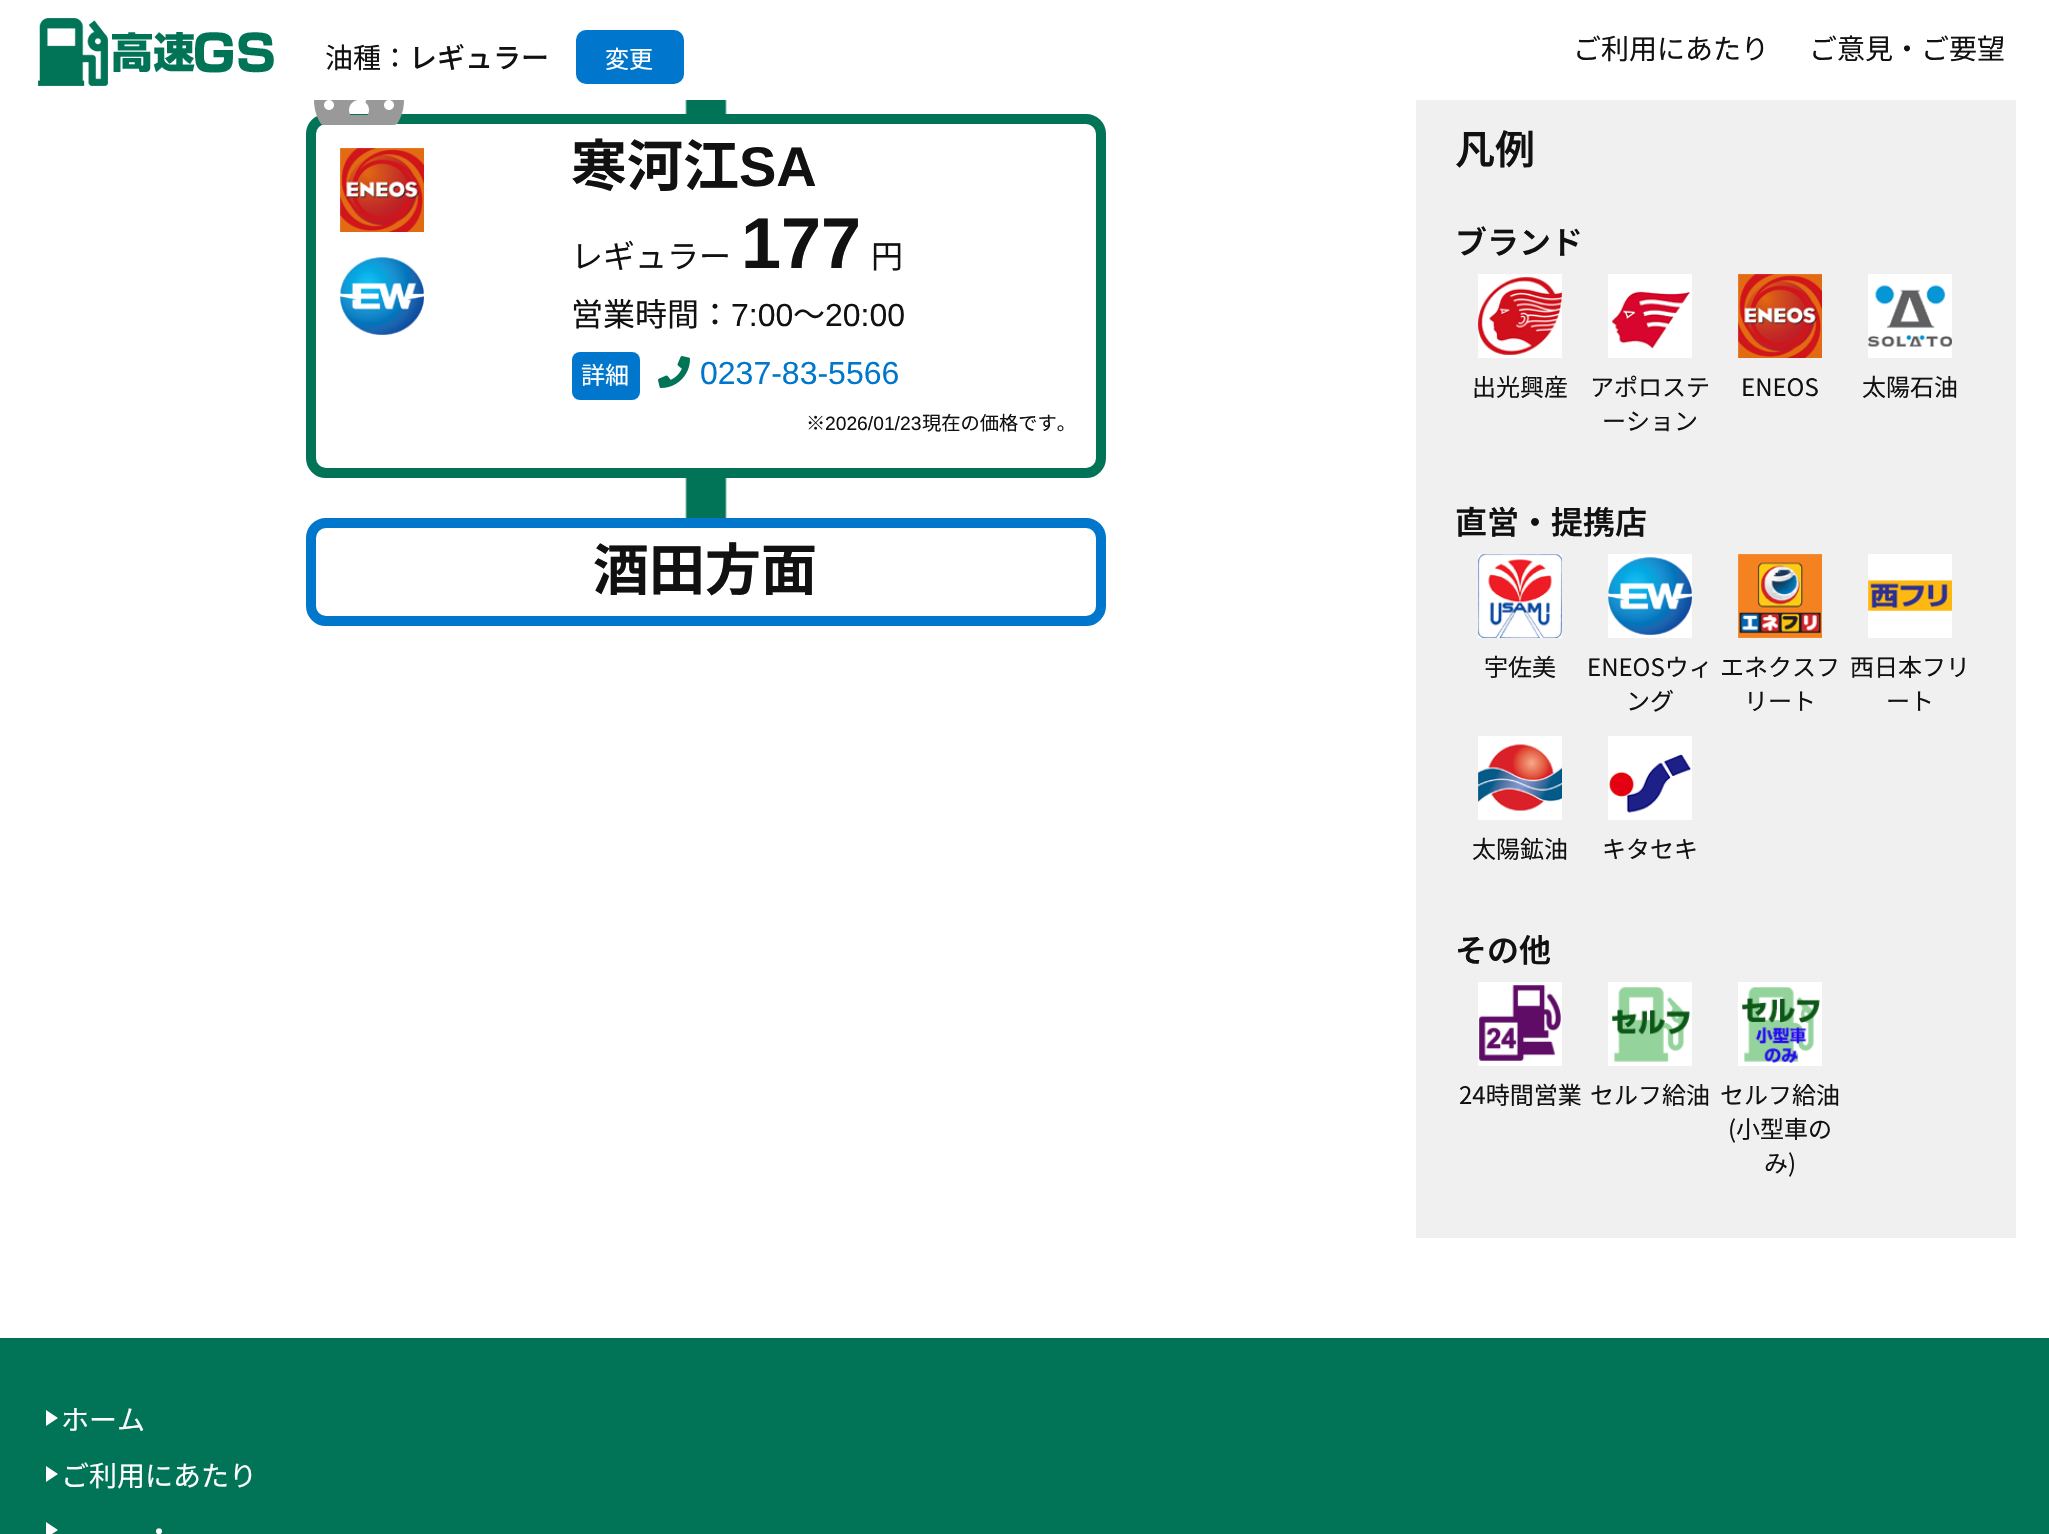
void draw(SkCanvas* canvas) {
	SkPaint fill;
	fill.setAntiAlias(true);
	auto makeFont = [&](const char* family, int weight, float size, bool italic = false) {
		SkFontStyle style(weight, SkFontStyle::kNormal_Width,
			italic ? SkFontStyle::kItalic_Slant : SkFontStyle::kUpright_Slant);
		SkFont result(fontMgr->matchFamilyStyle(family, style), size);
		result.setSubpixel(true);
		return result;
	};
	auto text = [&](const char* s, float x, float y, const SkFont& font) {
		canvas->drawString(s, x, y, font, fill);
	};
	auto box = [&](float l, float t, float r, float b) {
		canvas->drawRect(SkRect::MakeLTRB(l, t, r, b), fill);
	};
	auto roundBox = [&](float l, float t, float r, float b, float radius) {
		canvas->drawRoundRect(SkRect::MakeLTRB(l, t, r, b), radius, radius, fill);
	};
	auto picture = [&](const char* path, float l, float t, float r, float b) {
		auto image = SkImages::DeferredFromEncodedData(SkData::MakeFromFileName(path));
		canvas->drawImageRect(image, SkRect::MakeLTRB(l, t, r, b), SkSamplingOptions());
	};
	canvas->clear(0xFFFFFFFF);
	picture("image0.png", 36, 18, 274, 86);
	fill.setColor(0xFF0077CC);
	roundBox(576, 30, 684, 84, 10);
	picture("image1.png", 685, 100, 727, 518);
	fill.setColor(0xFFFFFFFF);
	canvas->drawRoundRect(SkRect::MakeLTRB(311, 119, 1101, 473), 15, 15, fill);
	fill.setStyle(SkPaint::kStroke_Style);
	fill.setStrokeWidth(10);
	fill.setColor(0xFF017356);
	canvas->drawRoundRect(SkRect::MakeLTRB(311, 119, 1101, 473), 15, 15, fill);
	picture("image2.png", 314, 100, 404, 125);
	picture("image3.png", 340, 148, 424, 232);
	picture("image4.png", 340, 257, 424, 335);
	fill.setStyle(SkPaint::kFill_Style);
	fill.setColor(0xFF0077CC);
	roundBox(572, 352, 640, 400, 8);
	picture("image5.png", 658, 356, 690, 388);
	fill.setStyle(SkPaint::kStroke_Style);
	canvas->drawRoundRect(SkRect::MakeLTRB(311, 523, 1101, 621), 15, 15, fill);
	fill.setStyle(SkPaint::kFill_Style);
	fill.setColor(0xFFF0F0F0);
	box(1416, 100, 2016, 1238);
	picture("image6.png", 1478, 274, 1562, 358);
	picture("image7.png", 1608, 274, 1692, 358);
	picture("image8.png", 1738, 274, 1822, 358);
	picture("image9.png", 1868, 274, 1952, 358);
	picture("image10.png", 1478, 554, 1562, 638);
	picture("image11.png", 1608, 554, 1692, 638);
	picture("image12.png", 1738, 554, 1822, 638);
	picture("image13.png", 1868, 554, 1952, 638);
	picture("image14.png", 1478, 736, 1562, 820);
	picture("image15.png", 1608, 736, 1692, 820);
	picture("image16.png", 1478, 982, 1562, 1066);
	picture("image17.png", 1608, 982, 1692, 1066);
	picture("image18.png", 1738, 982, 1822, 1066);
	fill.setColor(0xFF017356);
	box(0, 1338, 2049, 1534);
	fill.setColor(0xFFFFFFFF);
	canvas->drawPath(SkPathBuilder().moveTo(46, 1426).lineTo(46, 1410).lineTo(58, 1418).close().detach(), fill);
	canvas->drawPath(SkPathBuilder().moveTo(46, 1482).lineTo(46, 1466).lineTo(58, 1474).close().detach(), fill);
	canvas->drawPath(SkPathBuilder().moveTo(46, 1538).lineTo(46, 1522).lineTo(58, 1530).close().detach(), fill);
	auto font1 = makeFont("Noto Sans JP", 400, 28);
	fill.setColor(0xFF111111);
	text("油種：", 325, 68, font1);
	auto font2 = makeFont("Noto Sans JP", 500, 28);
	text("レギュラー", 409, 68, font2);
	auto font3 = makeFont("Noto Sans JP", 400, 24);
	fill.setColor(0xFFFFFFFF);
	text("変更", 605, 68, font3);
	fill.setColor(0xFF111111);
	text("ご利用にあたり", 1573, 59, font1);
	text("ご意見・ご要望", 1809, 59, font1);
	auto font4 = makeFont("Noto Sans JP", 700, 56);
	text("寒河江", 571, 186, font4);
	auto font5 = makeFont("Liberation Sans", 700, 56);
	text("SA", 739, 186, font5);
	auto font6 = makeFont("Noto Sans JP", 400, 32);
	text("レギュラー", 571, 268, font6);
	auto font7 = makeFont("Liberation Sans", 700, 72);
	text("177", 741, 268, font7);
	text("円", 871, 268, font6);
	text("営業時間：", 571, 326, font6);
	auto font8 = makeFont("Liberation Sans", 400, 32);
	text("7:00", 731, 326, font8);
	text("～", 793, 326, font6);
	text("20:00", 825, 326, font8);
	fill.setColor(0xFFFFFFFF);
	text("詳細", 581, 384, font3);
	fill.setColor(0xFF0077CC);
	text("0237-83-5566", 700, 384, font8);
	auto font9 = makeFont("Noto Sans JP", 400, 19.25f);
	fill.setColor(0xFF111111);
	text("※", 806, 430, font9);
	auto font10 = makeFont("Liberation Sans", 400, 19.25f);
	text("2026/01/23", 825, 430, font10);
	text("現在の価格です。", 922, 430, font9);
	text("酒田方面", 593, 590, font4);
	auto font11 = makeFont("Noto Sans JP", 600, 40);
	text("凡例", 1455, 164, font11);
	auto font12 = makeFont("Noto Sans JP", 600, 32);
	text("ブランド", 1455, 254, font12);
	text("出光興産", 1472, 396, font3);
	text("アポロステ", 1590, 396, font3);
	text("ーション", 1602, 430, font3);
	text("ENEOS", 1741, 396, font3);
	text("太陽石油", 1862, 396, font3);
	text("直営・提携店", 1455, 534, font12);
	text("宇佐美", 1484, 676, font3);
	text("ENEOSウィ", 1587, 676, font3);
	text("ング", 1626, 710, font3);
	text("エネクスフ", 1720, 676, font3);
	text("リート", 1744, 710, font3);
	text("西日本フリ", 1850, 676, font3);
	text("ート", 1886, 710, font3);
	text("太陽鉱油", 1472, 858, font3);
	text("キタセキ", 1602, 858, font3);
	text("その他", 1455, 962, font12);
	text("24時間営業", 1459, 1104, font3);
	text("セルフ給油", 1590, 1104, font3);
	text("セルフ給油", 1720, 1104, font3);
	text("(小型車の", 1728, 1138, font3);
	text("み)", 1764, 1172, font3);
	fill.setColor(0xFFFFFFFF);
	text("ホーム", 61, 1430, font1);
	text("ご利用にあたり", 61, 1486, font1);
	text("・", 145, 1542, font1);
}
